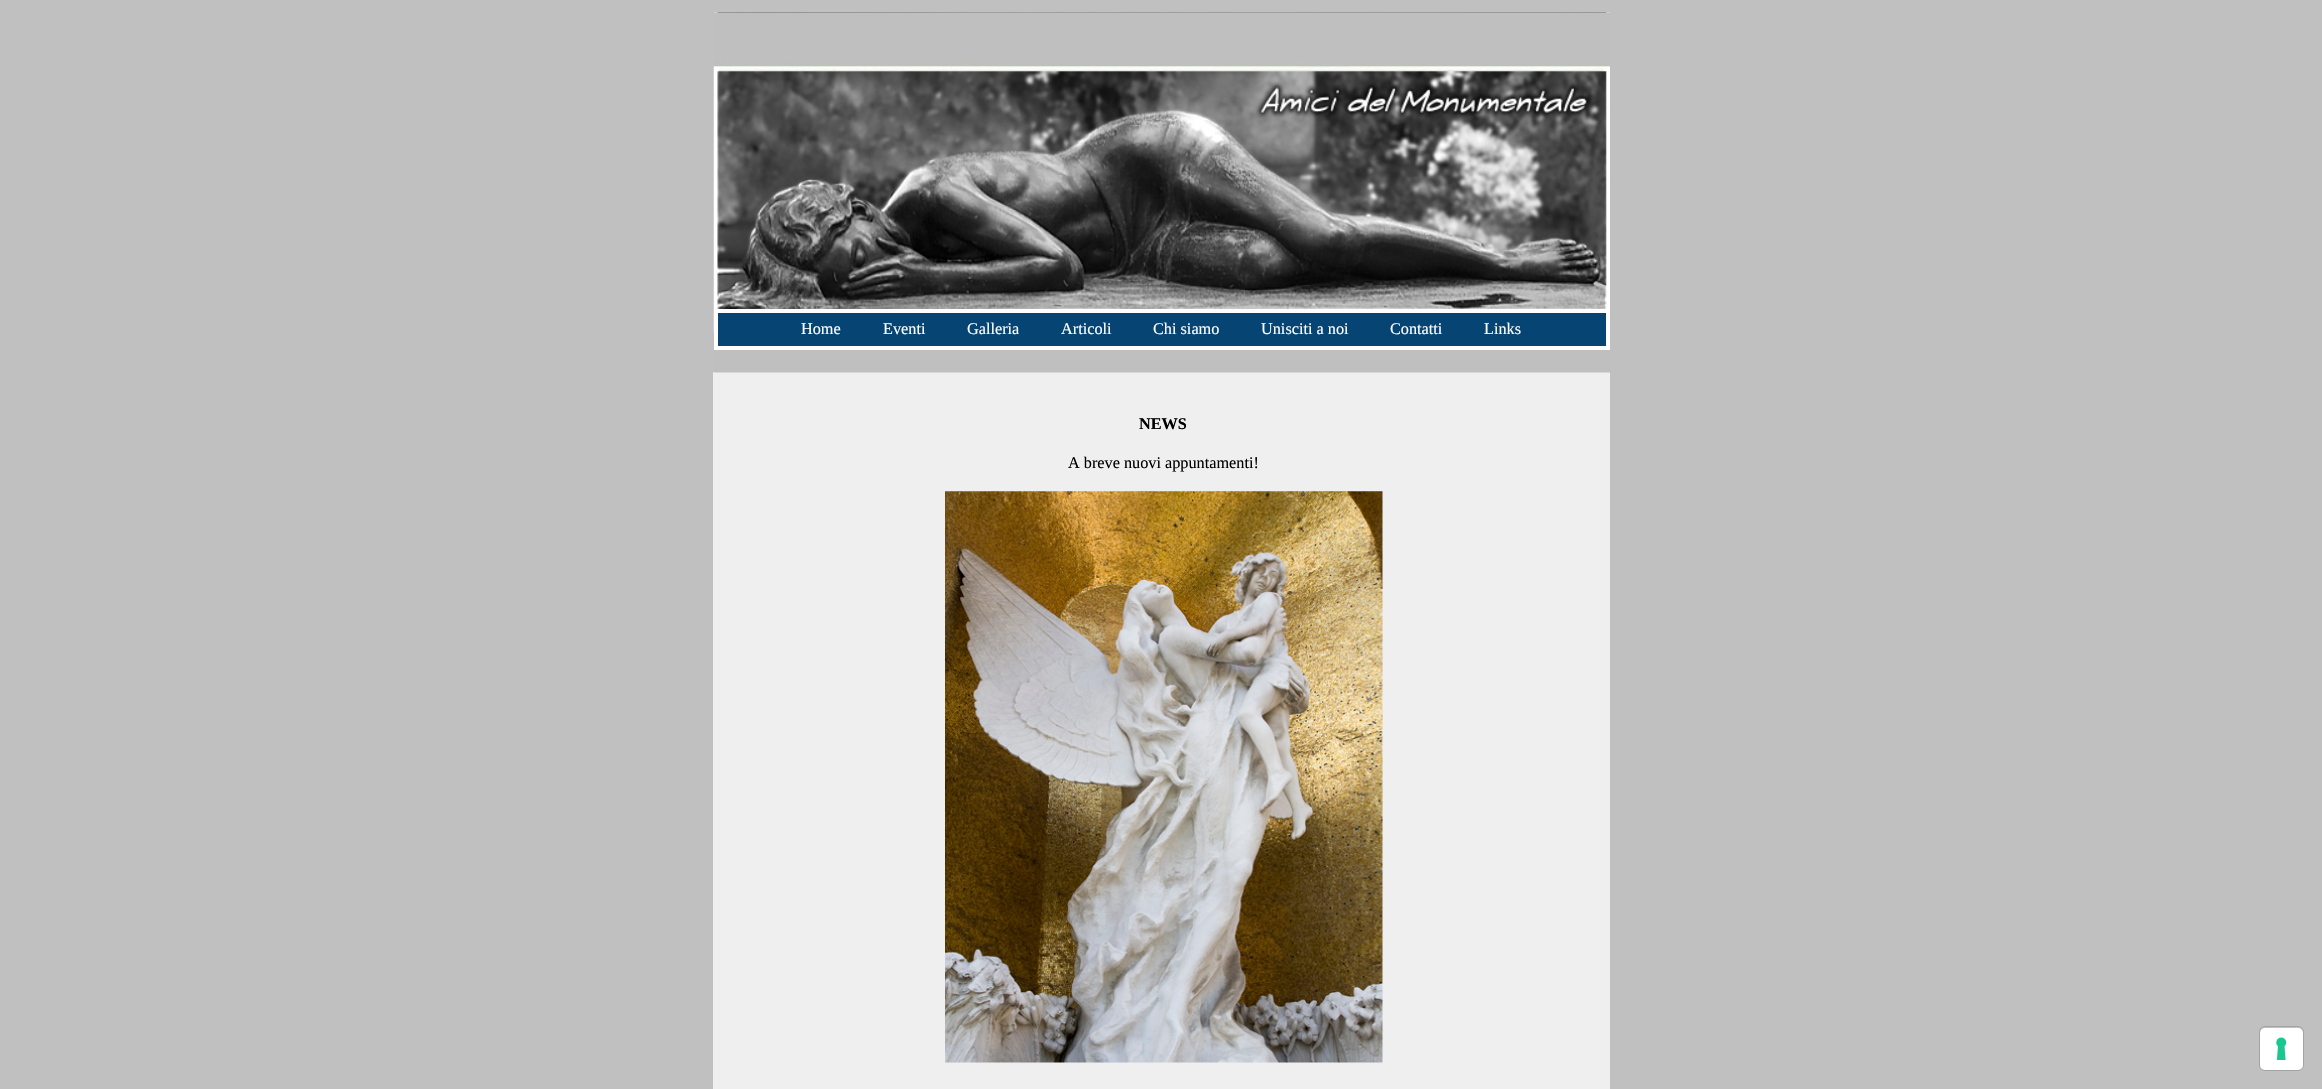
void draw(SkCanvas* canvas) {
	SkPaint fill;
	fill.setAntiAlias(true);
	auto makeFont = [&](const char* family, int weight, float size, bool italic = false) {
		SkFontStyle style(weight, SkFontStyle::kNormal_Width,
			italic ? SkFontStyle::kItalic_Slant : SkFontStyle::kUpright_Slant);
		SkFont result(fontMgr->matchFamilyStyle(family, style), size);
		result.setSubpixel(true);
		return result;
	};
	auto text = [&](const char* s, float x, float y, const SkFont& font) {
		canvas->drawString(s, x, y, font, fill);
	};
	auto box = [&](float l, float t, float r, float b) {
		canvas->drawRect(SkRect::MakeLTRB(l, t, r, b), fill);
	};
	auto roundBox = [&](float l, float t, float r, float b, float radius) {
		canvas->drawRoundRect(SkRect::MakeLTRB(l, t, r, b), radius, radius, fill);
	};
	auto picture = [&](const char* path, float l, float t, float r, float b) {
		auto image = SkImages::DeferredFromEncodedData(SkData::MakeFromFileName(path));
		canvas->drawImageRect(image, SkRect::MakeLTRB(l, t, r, b), SkSamplingOptions());
	};
	canvas->clear(0xFFC0C0C0);
	fill.setColor(0xFFEFEFEF);
	box(713, 372, 1610, 1089);
	picture("image0.png", 713, 12, 1610, 373);
	fill.setColor(0xFF064473);
	canvas->drawRect(SkRect::MakeLTRB(716, 311, 1608, 348), fill);
	fill.setStyle(SkPaint::kStroke_Style);
	fill.setStrokeWidth(4);
	fill.setColor(0xFFFFFFFF);
	canvas->drawRect(SkRect::MakeLTRB(716, 311, 1608, 348), fill);
	picture("image1.png", 945, 491, 1383, 1063);
	fill.setStrokeWidth(1);
	fill.setColor(0xFFA3A3A3);
	canvas->drawRoundRect(SkRect::MakeLTRB(2259.5f, 1026.5f, 2303.5f, 1070.5f), 5.5f, 5.5f, fill);
	fill.setStyle(SkPaint::kFill_Style);
	fill.setColor(0xFFFFFFFF);
	roundBox(2260, 1028, 2303, 1070, 5);
	picture("image2.png", 2276, 1037, 2287, 1060);
	auto font1 = makeFont("Liberation Serif", 400, 16.25f);
	text("Home", 801, 334, font1);
	text("Eventi", 883, 334, font1);
	text("Galleria", 967, 334, font1);
	text("Articoli", 1061, 334, font1);
	text("Chi siamo", 1153, 334, font1);
	text("Unisciti a noi", 1261, 334, font1);
	text("Contatti", 1390, 334, font1);
	text("Links", 1484, 334, font1);
	auto font2 = makeFont("Liberation Serif", 700, 16.25f);
	fill.setColor(0xFF000000);
	text("NEWS", 1139, 429, font2);
	text("A breve nuovi appuntamenti!", 1068, 468, font1);
}
